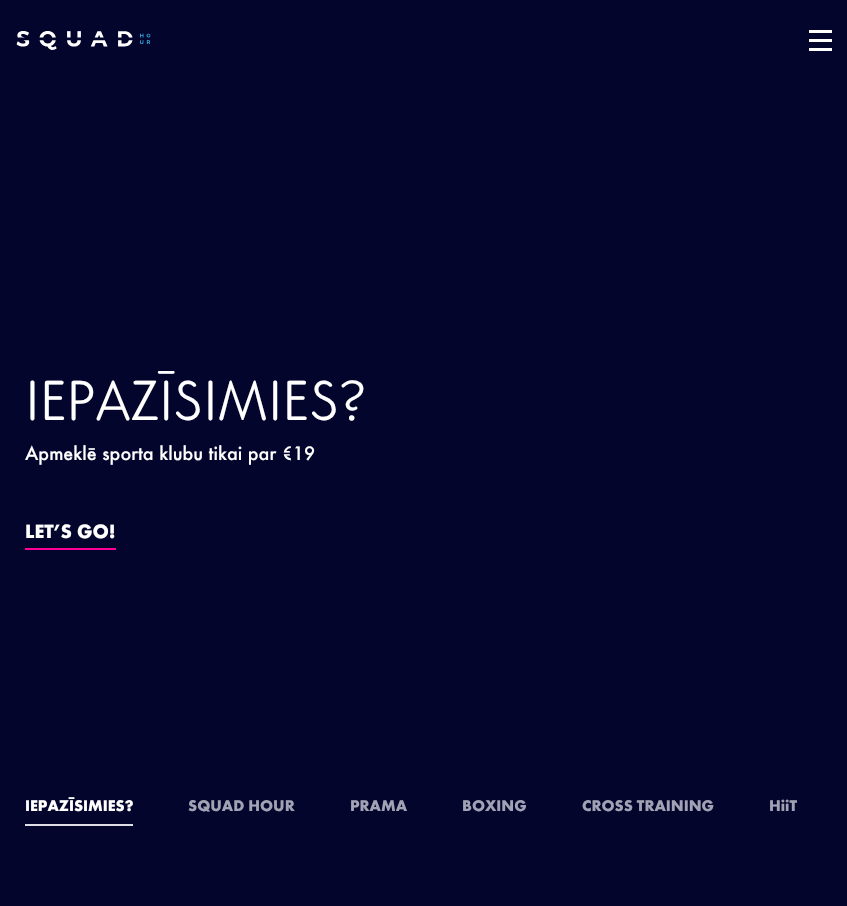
void draw(SkCanvas* canvas) {
	SkPaint fill;
	fill.setAntiAlias(true);
	auto makeFont = [&](const char* family, int weight, float size, bool italic = false) {
		SkFontStyle style(weight, SkFontStyle::kNormal_Width,
			italic ? SkFontStyle::kItalic_Slant : SkFontStyle::kUpright_Slant);
		SkFont result(fontMgr->matchFamilyStyle(family, style), size);
		result.setSubpixel(true);
		return result;
	};
	auto text = [&](const char* s, float x, float y, const SkFont& font) {
		canvas->drawString(s, x, y, font, fill);
	};
	auto box = [&](float l, float t, float r, float b) {
		canvas->drawRect(SkRect::MakeLTRB(l, t, r, b), fill);
	};
	auto picture = [&](const char* path, float l, float t, float r, float b) {
		auto image = SkImages::DeferredFromEncodedData(SkData::MakeFromFileName(path));
		canvas->drawImageRect(image, SkRect::MakeLTRB(l, t, r, b), SkSamplingOptions());
	};
	canvas->clear(0xFF03052C);
	picture("image0.png", 16, 31, 151, 50);
	fill.setColor(0xFFFFFFFF);
	box(809, 30, 832, 33);
	box(809, 39, 832, 42);
	box(809, 48, 832, 51);
	fill.setColor(0xFFFF0096);
	box(25, 548, 116, 550);
	fill.setColor(0xFFDEDFE4);
	box(25, 824, 133, 826);
	auto font1 = makeFont("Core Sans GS", 300, 56);
	fill.setColor(0xFFFFFFFF);
	text("IEPAZĪSIMIES?", 25, 420, font1);
	auto font2 = makeFont("Futura", 500, 18);
	text("Apmeklē sporta klubu tikai par €19", 25, 460, font2);
	auto font3 = makeFont("Futura", 700, 20);
	text("LET’S GO!", 25, 538, font3);
	auto font4 = makeFont("Futura", 700, 16);
	text("IEPAZĪSIMIES?", 25, 811, font4);
	fill.setColor(0xFFA1A2B4);
	text("SQUAD HOUR", 188, 811, font4);
	text("PRAMA", 350, 811, font4);
	text("BOXING", 462, 811, font4);
	text("CROSS TRAINING", 582, 811, font4);
	text("HiiT", 769, 811, font4);
}
